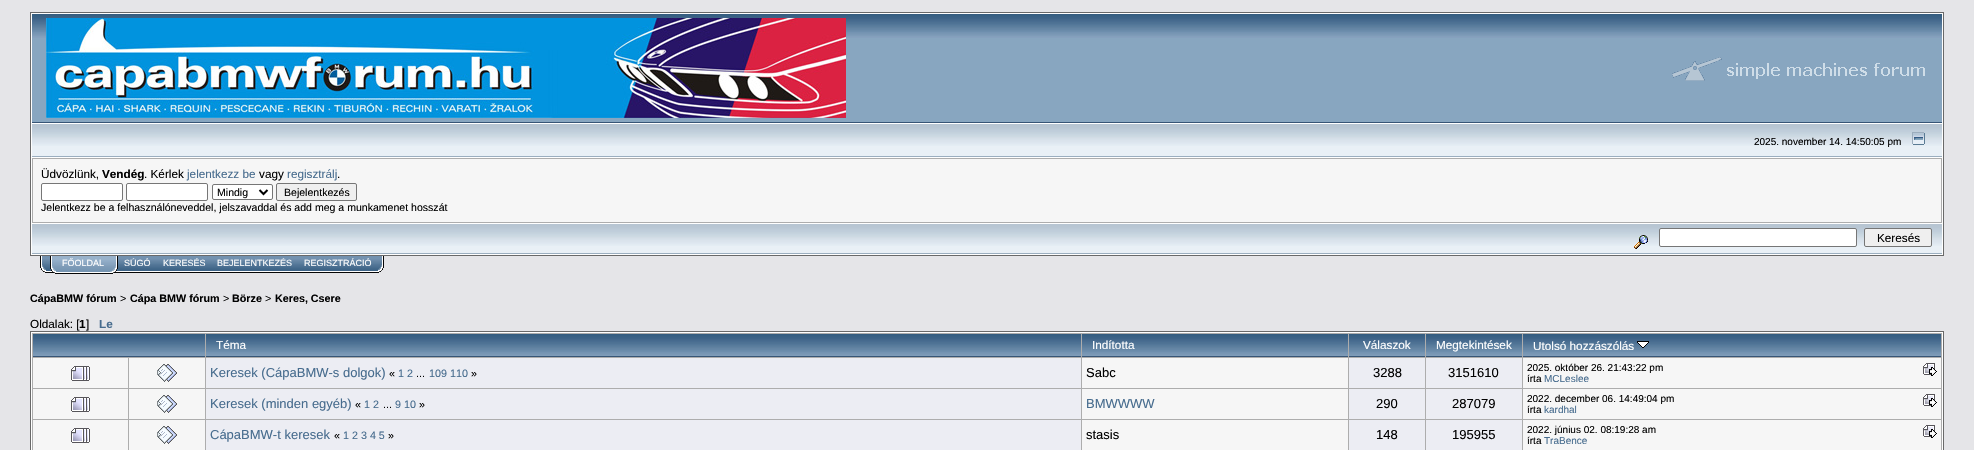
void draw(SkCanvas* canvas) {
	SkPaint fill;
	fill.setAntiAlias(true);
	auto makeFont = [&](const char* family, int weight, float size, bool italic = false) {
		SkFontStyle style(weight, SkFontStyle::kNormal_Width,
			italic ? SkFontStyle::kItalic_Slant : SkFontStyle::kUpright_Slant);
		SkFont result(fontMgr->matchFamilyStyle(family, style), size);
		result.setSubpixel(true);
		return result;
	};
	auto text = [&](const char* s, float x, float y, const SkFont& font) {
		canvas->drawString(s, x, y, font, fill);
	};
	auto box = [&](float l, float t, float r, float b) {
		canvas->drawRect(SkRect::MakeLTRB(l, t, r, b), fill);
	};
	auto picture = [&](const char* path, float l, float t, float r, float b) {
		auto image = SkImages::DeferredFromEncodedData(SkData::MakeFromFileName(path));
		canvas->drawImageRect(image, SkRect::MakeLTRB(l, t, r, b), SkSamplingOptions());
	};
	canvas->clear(0xFFE5E5E8);
	fill.setColor(0xFFFFFFFF);
	canvas->drawRect(SkRect::MakeLTRB(30.5f, 12.5f, 1943.5f, 255.5f), fill);
	fill.setStyle(SkPaint::kStroke_Style);
	fill.setStrokeWidth(1);
	fill.setColor(0xFF696969);
	canvas->drawRect(SkRect::MakeLTRB(30.5f, 12.5f, 1943.5f, 255.5f), fill);
	fill.setStyle(SkPaint::kFill_Style);
	fill.setColor(0xFF88A6C0);
	box(32, 38, 1942, 122);
	picture("image0.png", 32, 14, 1457, 38);
	fill.setColor(0xFF375576);
	box(32, 122, 1942, 123);
	picture("image1.png", 46, 18, 846, 118);
	picture("image2.png", 1457, 14, 1942, 38);
	picture("image3.png", 1672, 57, 1925, 81);
	fill.setColor(0xFFE9F0F6);
	box(32, 146, 1942, 156);
	picture("image4.png", 32, 124, 1942, 146);
	fill.setColor(0xFF9BAEBF);
	box(32, 156, 1942, 157);
	picture("image5.png", 1912, 132, 1925, 145);
	fill.setColor(0xFFADADAD);
	box(32, 158, 1942, 223);
	fill.setColor(0xFFF6F6F6);
	box(33, 159, 1941, 222);
	fill.setColor(0xFFFFFFFF);
	canvas->drawRoundRect(SkRect::MakeLTRB(41.5f, 183.5f, 122.5f, 200.5f), 1.5f, 1.5f, fill);
	fill.setStyle(SkPaint::kStroke_Style);
	fill.setColor(0xFF767676);
	canvas->drawRoundRect(SkRect::MakeLTRB(41.5f, 183.5f, 122.5f, 200.5f), 1.5f, 1.5f, fill);
	fill.setStyle(SkPaint::kFill_Style);
	fill.setColor(0xFFFFFFFF);
	canvas->drawRoundRect(SkRect::MakeLTRB(126.5f, 183.5f, 207.5f, 200.5f), 1.5f, 1.5f, fill);
	fill.setStyle(SkPaint::kStroke_Style);
	fill.setColor(0xFF767676);
	canvas->drawRoundRect(SkRect::MakeLTRB(126.5f, 183.5f, 207.5f, 200.5f), 1.5f, 1.5f, fill);
	fill.setStyle(SkPaint::kFill_Style);
	fill.setColor(0xFFFFFFFF);
	canvas->drawRoundRect(SkRect::MakeLTRB(212.5f, 184.5f, 272.5f, 199.5f), 1.5f, 1.5f, fill);
	fill.setStyle(SkPaint::kStroke_Style);
	fill.setColor(0xFF767676);
	canvas->drawRoundRect(SkRect::MakeLTRB(212.5f, 184.5f, 272.5f, 199.5f), 1.5f, 1.5f, fill);
	fill.setStrokeWidth(2);
	fill.setColor(0xFF000000);
	canvas->drawPath(SkPathBuilder().moveTo(259.5f, 190).lineTo(263.5f, 194).lineTo(267.5f, 190).detach(), fill);
	fill.setStyle(SkPaint::kFill_Style);
	fill.setColor(0xFFEFEFEF);
	canvas->drawRoundRect(SkRect::MakeLTRB(276.5f, 183.5f, 356.5f, 200.5f), 1.5f, 1.5f, fill);
	fill.setStyle(SkPaint::kStroke_Style);
	fill.setStrokeWidth(1);
	fill.setColor(0xFF767676);
	canvas->drawRoundRect(SkRect::MakeLTRB(276.5f, 183.5f, 356.5f, 200.5f), 1.5f, 1.5f, fill);
	fill.setStyle(SkPaint::kFill_Style);
	fill.setColor(0xFFE9F0F6);
	box(32, 246, 1942, 253);
	picture("image4.png", 32, 224, 1942, 246);
	fill.setColor(0xFF9BAEBF);
	box(32, 253, 1942, 254);
	picture("image6.png", 1634, 235, 1648, 249);
	fill.setColor(0xFFFFFFFF);
	canvas->drawRoundRect(SkRect::MakeLTRB(1659.5f, 228.5f, 1856.5f, 246.5f), 1.5f, 1.5f, fill);
	fill.setStyle(SkPaint::kStroke_Style);
	fill.setColor(0xFF767676);
	canvas->drawRoundRect(SkRect::MakeLTRB(1659.5f, 228.5f, 1856.5f, 246.5f), 1.5f, 1.5f, fill);
	fill.setStyle(SkPaint::kFill_Style);
	fill.setColor(0xFFEFEFEF);
	canvas->drawRoundRect(SkRect::MakeLTRB(1864.5f, 228.5f, 1931.5f, 246.5f), 1.5f, 1.5f, fill);
	fill.setStyle(SkPaint::kStroke_Style);
	fill.setColor(0xFF767676);
	canvas->drawRoundRect(SkRect::MakeLTRB(1864.5f, 228.5f, 1931.5f, 246.5f), 1.5f, 1.5f, fill);
	picture("image7.png", 40, 256, 50, 273);
	picture("image8.png", 50, 256, 56, 274);
	picture("image9.png", 56, 256, 110, 274);
	picture("image10.png", 110, 256, 118, 274);
	picture("image11.png", 118, 256, 157, 273);
	picture("image12.png", 157, 256, 211, 273);
	picture("image13.png", 211, 256, 298, 273);
	picture("image14.png", 298, 256, 378, 273);
	picture("image15.png", 378, 256, 384, 273);
	fill.setStyle(SkPaint::kFill_Style);
	fill.setColor(0xFFFFFFFF);
	canvas->drawRect(SkRect::MakeLTRB(30.5f, 331.5f, 1943.5f, 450.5f), fill);
	fill.setStyle(SkPaint::kStroke_Style);
	fill.setColor(0xFF696969);
	canvas->drawRect(SkRect::MakeLTRB(30.5f, 331.5f, 1943.5f, 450.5f), fill);
	fill.setStyle(SkPaint::kFill_Style);
	fill.setColor(0xFFADADAD);
	box(32, 333, 1942, 450);
	picture("image16.png", 33, 334, 205, 356);
	fill.setColor(0xFF375576);
	box(33, 356, 205, 357);
	picture("image17.png", 206, 334, 1081, 356);
	box(206, 356, 1081, 357);
	picture("image18.png", 1082, 334, 1348, 356);
	box(1082, 356, 1348, 357);
	picture("image19.png", 1349, 334, 1425, 356);
	box(1349, 356, 1425, 357);
	picture("image20.png", 1426, 334, 1522, 356);
	box(1426, 356, 1522, 357);
	picture("image21.png", 1523, 334, 1941, 356);
	box(1523, 356, 1941, 357);
	picture("image22.png", 1637, 341, 1649, 348);
	fill.setColor(0xFFF6F6F6);
	box(33, 358, 128, 388);
	picture("image23.png", 71, 366, 90, 381);
	box(129, 358, 205, 388);
	picture("image24.png", 157, 364, 177, 382);
	fill.setColor(0xFFECEDF3);
	box(206, 358, 1081, 388);
	fill.setColor(0xFFF6F6F6);
	box(1082, 358, 1348, 388);
	fill.setColor(0xFFECEDF3);
	box(1349, 358, 1425, 388);
	box(1426, 358, 1522, 388);
	fill.setColor(0xFFF6F6F6);
	box(1523, 358, 1941, 388);
	picture("image25.png", 1923, 363, 1937, 376);
	box(33, 389, 128, 419);
	picture("image23.png", 71, 397, 90, 412);
	box(129, 389, 205, 419);
	picture("image24.png", 157, 395, 177, 413);
	fill.setColor(0xFFECEDF3);
	box(206, 389, 1081, 419);
	fill.setColor(0xFFF6F6F6);
	box(1082, 389, 1348, 419);
	fill.setColor(0xFFECEDF3);
	box(1349, 389, 1425, 419);
	box(1426, 389, 1522, 419);
	fill.setColor(0xFFF6F6F6);
	box(1523, 389, 1941, 419);
	picture("image25.png", 1923, 394, 1937, 407);
	box(33, 420, 128, 450);
	picture("image23.png", 71, 428, 90, 443);
	box(129, 420, 205, 450);
	picture("image24.png", 157, 426, 177, 444);
	fill.setColor(0xFFECEDF3);
	box(206, 420, 1081, 450);
	fill.setColor(0xFFF6F6F6);
	box(1082, 420, 1348, 450);
	fill.setColor(0xFFECEDF3);
	box(1349, 420, 1425, 450);
	box(1426, 420, 1522, 450);
	fill.setColor(0xFFF6F6F6);
	box(1523, 420, 1941, 450);
	picture("image25.png", 1923, 425, 1937, 438);
	auto font1 = makeFont("Liberation Sans", 400, 10);
	fill.setColor(0xFF000000);
	text("2025. november 14. 14:50:05 pm", 1754, 145, font1);
	auto font2 = makeFont("Liberation Sans", 400, 11.75f);
	text("Üdvözlünk,", 41, 178, font2);
	auto font3 = makeFont("Liberation Sans", 700, 11.75f);
	text("Vendég", 102, 178, font3);
	text(". Kérlek", 144, 178, font2);
	fill.setColor(0xFF476C8E);
	text("jelentkezz be", 187, 178, font2);
	fill.setColor(0xFF000000);
	text("vagy", 259, 178, font2);
	fill.setColor(0xFF476C8E);
	text("regisztrálj", 287, 178, font2);
	fill.setColor(0xFF000000);
	text(".", 337, 178, font2);
	auto font4 = makeFont("Liberation Sans", 400, 10.55f);
	text("Mindig", 217, 196, font4);
	text("Bejelentkezés", 284, 196, font4);
	text("Jelentkezz be a felhasználóneveddel, jelszavaddal és add meg a munkamenet hosszát", 41, 211, font4);
	text("Keresés", 1877, 242, font2);
	auto font5 = makeFont("Liberation Sans", 400, 9);
	fill.setColor(0xFFFFFFFF);
	text("FŐOLDAL", 62, 266, font5);
	text("SÚGÓ", 124, 266, font5);
	text("KERESÉS", 163, 266, font5);
	text("BEJELENTKEZÉS", 217, 266, font5);
	text("REGISZTRÁCIÓ", 304, 266, font5);
	auto font6 = makeFont("Liberation Sans", 700, 10.75f);
	fill.setColor(0xFF000000);
	text("CápaBMW fórum", 30, 302, font6);
	auto font7 = makeFont("Liberation Sans", 400, 10.75f);
	text(">", 120, 302, font7);
	text("Cápa BMW fórum", 130, 302, font6);
	text(">", 223, 302, font7);
	text("Börze", 232, 302, font6);
	text(">", 265, 302, font7);
	text("Keres, Csere", 275, 302, font6);
	text("Oldalak: [", 30, 328, font2);
	text("1", 79, 328, font3);
	text("]", 86, 328, font2);
	fill.setColor(0xFF476C8E);
	text("Le", 99, 328, font3);
	fill.setColor(0xFFFFFFFF);
	text("Téma", 216, 349, font2);
	text("Indította", 1092, 349, font2);
	text("Válaszok", 1363, 349, font2);
	text("Megtekintések", 1436, 349, font2);
	text("Utolsó hozzászólás", 1533, 350, font2);
	auto font8 = makeFont("Liberation Sans", 400, 13);
	fill.setColor(0xFF476C8E);
	text("Keresek (CápaBMW-s dolgok)", 210, 377, font8);
	fill.setColor(0xFF000000);
	text("«", 389, 377, font7);
	fill.setColor(0xFF476C8E);
	text("1 2", 398, 377, font7);
	fill.setColor(0xFF000000);
	text("...", 416, 377, font7);
	fill.setColor(0xFF476C8E);
	text("109 110", 429, 377, font7);
	fill.setColor(0xFF000000);
	text("»", 471, 377, font7);
	text("Sabc", 1086, 377, font8);
	text("3288", 1373, 377, font8);
	text("3151610", 1448, 377, font8);
	text("2025. október 26. 21:43:22 pm", 1527, 371, font1);
	text("írta", 1527, 382, font1);
	fill.setColor(0xFF476C8E);
	text("MCLeslee", 1544, 382, font1);
	text("Keresek (minden egyéb)", 210, 408, font8);
	fill.setColor(0xFF000000);
	text("«", 355, 408, font7);
	fill.setColor(0xFF476C8E);
	text("1 2", 364, 408, font7);
	fill.setColor(0xFF000000);
	text("...", 383, 408, font7);
	fill.setColor(0xFF476C8E);
	text("9 10", 395, 408, font7);
	fill.setColor(0xFF000000);
	text("»", 419, 408, font7);
	fill.setColor(0xFF476C8E);
	text("BMWWWW", 1086, 408, font8);
	fill.setColor(0xFF000000);
	text("290", 1376, 408, font8);
	text("287079", 1452, 408, font8);
	text("2022. december 06. 14:49:04 pm", 1527, 402, font1);
	text("írta", 1527, 413, font1);
	fill.setColor(0xFF476C8E);
	text("kardhal", 1544, 413, font1);
	text("CápaBMW-t keresek", 210, 439, font8);
	fill.setColor(0xFF000000);
	text("«", 334, 439, font7);
	fill.setColor(0xFF476C8E);
	text("1 2 3 4 5", 343, 439, font7);
	fill.setColor(0xFF000000);
	text("»", 388, 439, font7);
	text("stasis", 1086, 439, font8);
	text("148", 1376, 439, font8);
	text("195955", 1452, 439, font8);
	text("2022. június 02. 08:19:28 am", 1527, 433, font1);
	text("írta", 1527, 444, font1);
	fill.setColor(0xFF476C8E);
	text("TraBence", 1544, 444, font1);
}
